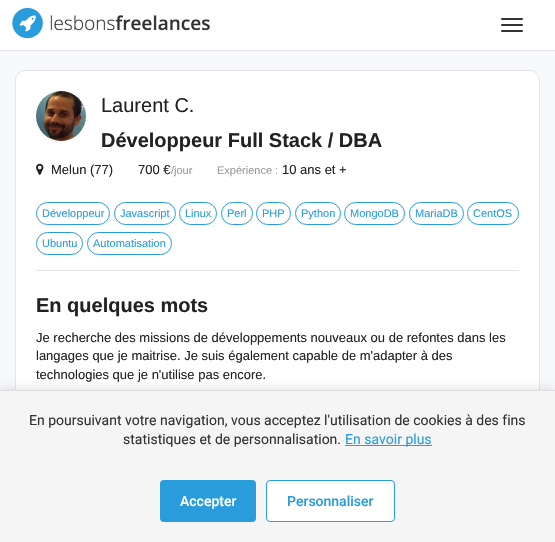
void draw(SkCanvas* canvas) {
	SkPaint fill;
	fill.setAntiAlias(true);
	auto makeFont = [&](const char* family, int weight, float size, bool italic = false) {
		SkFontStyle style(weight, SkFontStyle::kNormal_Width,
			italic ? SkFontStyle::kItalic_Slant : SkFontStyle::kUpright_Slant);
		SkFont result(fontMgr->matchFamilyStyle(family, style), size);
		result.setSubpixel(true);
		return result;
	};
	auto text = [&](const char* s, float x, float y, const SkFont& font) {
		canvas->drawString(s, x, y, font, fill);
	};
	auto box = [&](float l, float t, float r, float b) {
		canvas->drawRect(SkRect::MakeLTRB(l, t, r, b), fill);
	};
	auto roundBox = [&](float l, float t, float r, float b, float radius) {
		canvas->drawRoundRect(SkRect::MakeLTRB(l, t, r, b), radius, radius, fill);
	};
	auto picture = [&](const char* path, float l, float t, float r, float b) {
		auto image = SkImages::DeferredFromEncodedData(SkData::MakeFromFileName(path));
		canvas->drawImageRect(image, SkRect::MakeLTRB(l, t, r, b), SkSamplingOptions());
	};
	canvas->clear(0xFFF8F9FC);
	fill.setColor(0xFFFFFFFF);
	box(0, 0, 555, 50);
	fill.setColor(0xFFE5E5E5);
	box(0, 50, 555, 51);
	picture("image0.png", 12, 7, 210, 39);
	fill.setColor(0xFF333333);
	roundBox(501, 18, 523, 20, 1);
	roundBox(501, 24, 523, 26, 1);
	roundBox(501, 30, 523, 32, 1);
	fill.setColor(0xFFFFFFFF);
	canvas->drawRoundRect(SkRect::MakeLTRB(15.5f, 70.5f, 539.5f, 494.5f), 9.5f, 9.5f, fill);
	fill.setStyle(SkPaint::kStroke_Style);
	fill.setStrokeWidth(1);
	fill.setColor(0xFFE5E5E5);
	canvas->drawRoundRect(SkRect::MakeLTRB(15.5f, 70.5f, 539.5f, 494.5f), 9.5f, 9.5f, fill);
	picture("image1.png", 36, 91, 86, 141);
	picture("image2.png", 36, 163, 44, 175);
	fill.setColor(0xFF299CDC);
	canvas->drawRoundRect(SkRect::MakeLTRB(36.5f, 202.5f, 109.5f, 224.5f), 11, 11, fill);
	canvas->drawRoundRect(SkRect::MakeLTRB(114.5f, 202.5f, 175.5f, 224.5f), 11, 11, fill);
	canvas->drawRoundRect(SkRect::MakeLTRB(179.5f, 202.5f, 216.5f, 224.5f), 11, 11, fill);
	canvas->drawRoundRect(SkRect::MakeLTRB(221.5f, 202.5f, 252.5f, 224.5f), 11, 11, fill);
	canvas->drawRoundRect(SkRect::MakeLTRB(256.5f, 202.5f, 290.5f, 224.5f), 11, 11, fill);
	canvas->drawRoundRect(SkRect::MakeLTRB(295.5f, 202.5f, 340.5f, 224.5f), 11, 11, fill);
	canvas->drawRoundRect(SkRect::MakeLTRB(344.5f, 202.5f, 404.5f, 224.5f), 11, 11, fill);
	canvas->drawRoundRect(SkRect::MakeLTRB(409.5f, 202.5f, 463.5f, 224.5f), 11, 11, fill);
	canvas->drawRoundRect(SkRect::MakeLTRB(467.5f, 202.5f, 518.5f, 224.5f), 11, 11, fill);
	canvas->drawRoundRect(SkRect::MakeLTRB(36.5f, 232.5f, 82.5f, 254.5f), 11, 11, fill);
	canvas->drawRoundRect(SkRect::MakeLTRB(87.5f, 232.5f, 171.5f, 254.5f), 11, 11, fill);
	fill.setStyle(SkPaint::kFill_Style);
	fill.setColor(0xFFE5E5E5);
	box(36, 270, 519, 271);
	fill.setColor(0x1A000000);
	fill.setMaskFilter(SkMaskFilter::MakeBlur(kNormal_SkBlurStyle, 5));
	canvas->drawRect(SkRect::MakeLTRB(0, 388, 555, 540), fill);
	fill.setMaskFilter(nullptr);
	fill.setColor(0xFFF5F5F5);
	box(0, 391, 555, 542);
	fill.setColor(0xFFDDDDDD);
	box(0, 390, 555, 391);
	fill.setColor(0xFF299CDC);
	box(345, 445, 432, 446);
	roundBox(160, 480, 256, 522, 4);
	fill.setColor(0xFFFFFFFF);
	canvas->drawRoundRect(SkRect::MakeLTRB(266.5f, 480.5f, 394.5f, 521.5f), 3.5f, 3.5f, fill);
	fill.setStyle(SkPaint::kStroke_Style);
	fill.setColor(0xFF299CDC);
	canvas->drawRoundRect(SkRect::MakeLTRB(266.5f, 480.5f, 394.5f, 521.5f), 3.5f, 3.5f, fill);
	auto font1 = makeFont("Liberation Sans", 400, 20);
	fill.setStyle(SkPaint::kFill_Style);
	fill.setColor(0xFF222222);
	text("Laurent C.", 101, 112, font1);
	auto font2 = makeFont("Liberation Sans", 700, 20);
	text("Développeur Full Stack / DBA", 101, 147, font2);
	auto font3 = makeFont("Liberation Sans", 400, 13);
	text("Melun (77)", 51, 174, font3);
	text("700 €", 138, 174, font3);
	auto font4 = makeFont("Liberation Sans", 400, 11);
	fill.setColor(0xFF999999);
	text("/jour", 171, 174, font4);
	text("Expérience :", 217, 174, font4);
	fill.setColor(0xFF222222);
	text("10 ans et +", 282, 174, font3);
	fill.setColor(0xFF299CDC);
	text("Développeur", 42, 217, font4);
	text("Javascript", 120, 217, font4);
	text("Linux", 185, 217, font4);
	text("Perl", 227, 217, font4);
	text("PHP", 262, 217, font4);
	text("Python", 301, 217, font4);
	text("MongoDB", 350, 217, font4);
	text("MariaDB", 415, 217, font4);
	text("CentOS", 473, 217, font4);
	text("Ubuntu", 42, 247, font4);
	text("Automatisation", 93, 247, font4);
	fill.setColor(0xFF222222);
	text("En quelques mots", 36, 312, font2);
	text("Je recherche des missions de développements nouveaux ou de refontes dans les", 36, 342, font3);
	text("langages que je maitrise. Je suis également capable de m'adapter à des", 36, 360, font3);
	text("technologies que je n'utilise pas encore.", 36, 379, font3);
	auto font5 = makeFont("Roboto", 400, 14);
	fill.setColor(0xFF333333);
	text("En poursuivant votre navigation, vous acceptez l'utilisation de cookies à des fins", 29, 425, font5);
	text("statistiques et de personnalisation.", 123, 444, font5);
	fill.setColor(0xFF299CDC);
	text("En savoir plus", 345, 444, font5);
	auto font6 = makeFont("Roboto", 500, 14);
	fill.setColor(0xFFFFFFFF);
	text("Accepter", 180, 506, font6);
	fill.setColor(0xFF299CDC);
	text("Personnaliser", 287, 506, font6);
}
